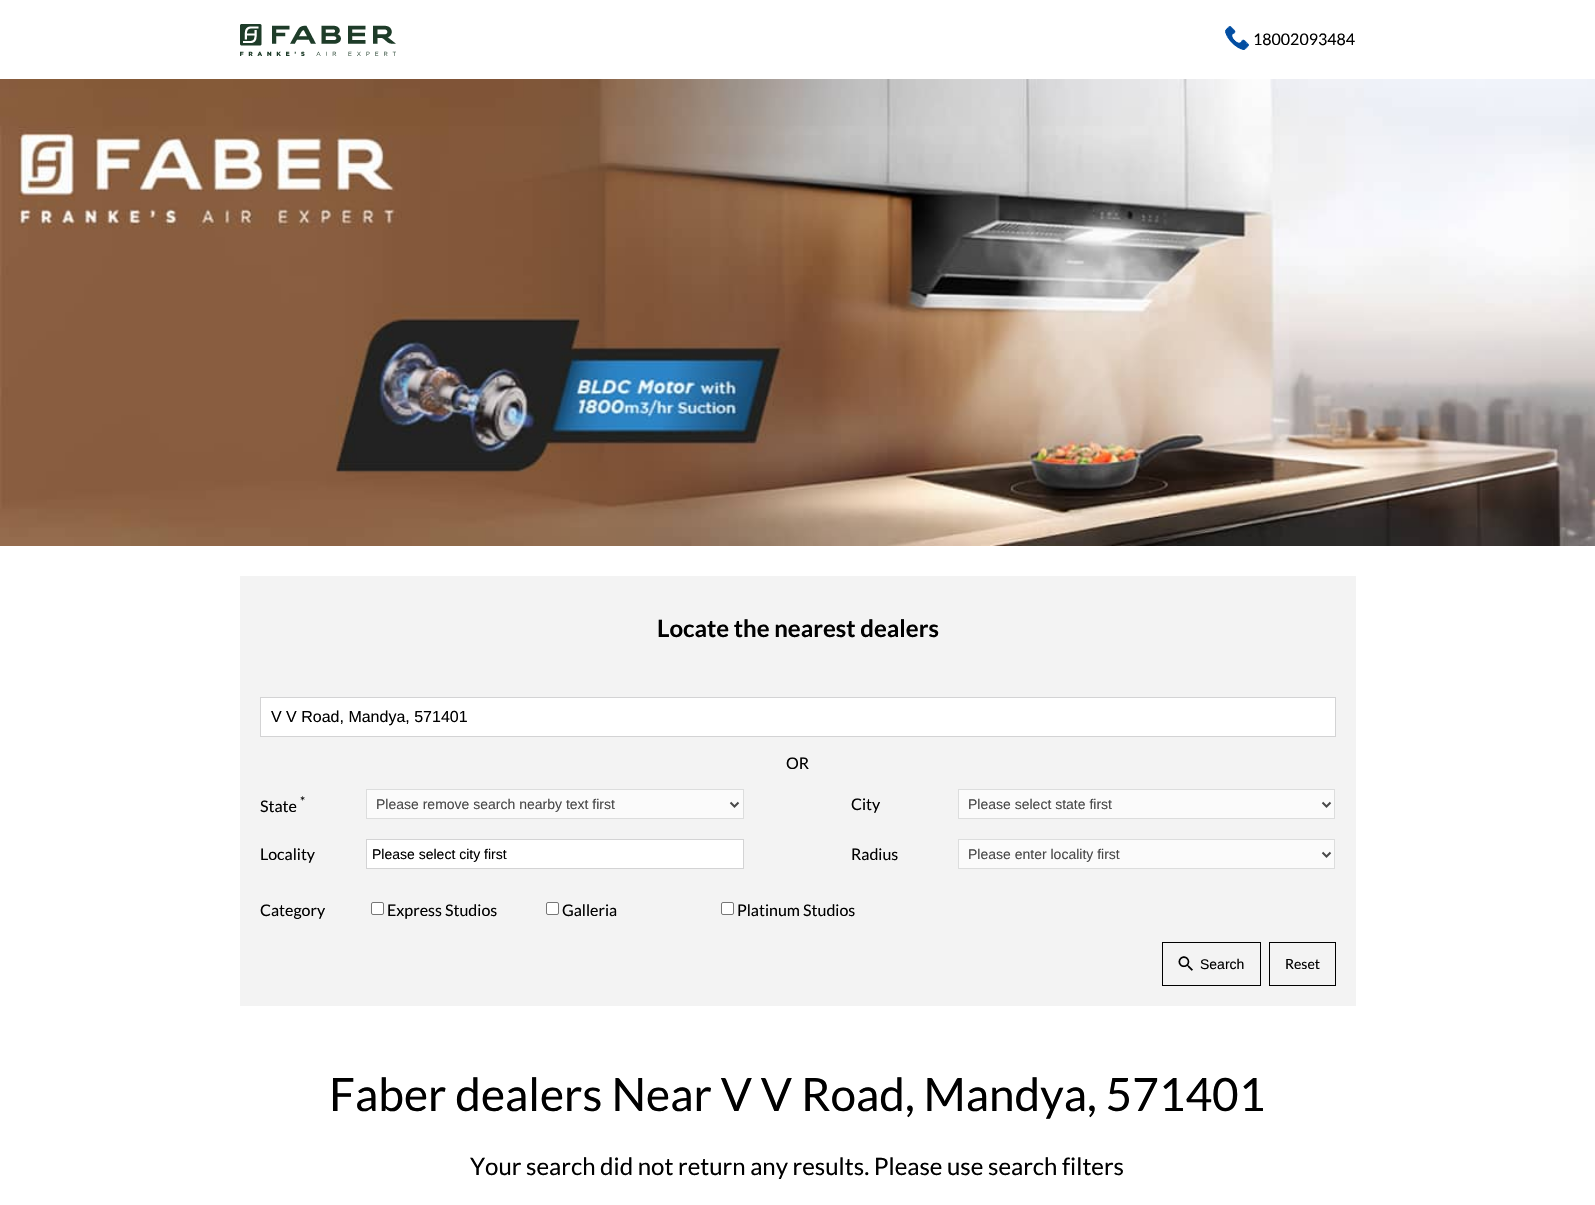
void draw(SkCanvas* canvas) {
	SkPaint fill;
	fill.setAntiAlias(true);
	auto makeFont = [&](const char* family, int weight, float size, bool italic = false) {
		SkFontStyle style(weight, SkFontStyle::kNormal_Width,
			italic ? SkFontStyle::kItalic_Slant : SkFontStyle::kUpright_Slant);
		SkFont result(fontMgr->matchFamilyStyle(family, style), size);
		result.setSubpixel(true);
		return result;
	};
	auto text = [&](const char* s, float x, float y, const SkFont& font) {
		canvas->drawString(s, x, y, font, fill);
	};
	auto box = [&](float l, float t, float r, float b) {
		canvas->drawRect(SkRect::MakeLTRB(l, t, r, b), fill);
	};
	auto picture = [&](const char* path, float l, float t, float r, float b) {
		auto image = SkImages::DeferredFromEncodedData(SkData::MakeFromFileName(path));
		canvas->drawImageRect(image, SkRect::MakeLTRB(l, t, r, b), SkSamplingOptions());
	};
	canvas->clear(0xFFFFFFFF);
	picture("image0.png", 240, 24, 396, 56);
	picture("image1.png", 1225, 26, 1249, 50);
	picture("image2.png", 0, 79, 1595, 546);
	fill.setColor(0xFFF3F3F3);
	box(240, 576, 1356, 1006);
	fill.setColor(0xFFFFFFFF);
	canvas->drawRect(SkRect::MakeLTRB(260.5f, 697.5f, 1335.5f, 736.5f), fill);
	fill.setStyle(SkPaint::kStroke_Style);
	fill.setStrokeWidth(1);
	fill.setColor(0xFFD3D3D4);
	canvas->drawRect(SkRect::MakeLTRB(260.5f, 697.5f, 1335.5f, 736.5f), fill);
	fill.setStyle(SkPaint::kFill_Style);
	fill.setColor(0xFFFBFBFB);
	canvas->drawRect(SkRect::MakeLTRB(366.5f, 789.5f, 743.5f, 818.5f), fill);
	fill.setStyle(SkPaint::kStroke_Style);
	fill.setColor(0xFFDCDDDD);
	canvas->drawRect(SkRect::MakeLTRB(366.5f, 789.5f, 743.5f, 818.5f), fill);
	fill.setStrokeWidth(2);
	fill.setColor(0xFF494949);
	canvas->drawPath(SkPathBuilder().moveTo(730.5f, 802.5f).lineTo(734.5f, 806.5f).lineTo(738.5f, 802.5f).detach(), fill);
	fill.setStyle(SkPaint::kFill_Style);
	fill.setColor(0xFFFBFBFB);
	canvas->drawRect(SkRect::MakeLTRB(958.5f, 789.5f, 1334.5f, 818.5f), fill);
	fill.setStyle(SkPaint::kStroke_Style);
	fill.setStrokeWidth(1);
	fill.setColor(0xFFDCDDDD);
	canvas->drawRect(SkRect::MakeLTRB(958.5f, 789.5f, 1334.5f, 818.5f), fill);
	fill.setStrokeWidth(2);
	fill.setColor(0xFF494949);
	canvas->drawPath(SkPathBuilder().moveTo(1322.5f, 802.5f).lineTo(1326.5f, 806.5f).lineTo(1330.5f, 802.5f).detach(), fill);
	fill.setStyle(SkPaint::kFill_Style);
	fill.setColor(0xFFFFFFFF);
	canvas->drawRect(SkRect::MakeLTRB(366.5f, 839.5f, 743.5f, 868.5f), fill);
	fill.setStyle(SkPaint::kStroke_Style);
	fill.setStrokeWidth(1);
	fill.setColor(0xFFD3D3D4);
	canvas->drawRect(SkRect::MakeLTRB(366.5f, 839.5f, 743.5f, 868.5f), fill);
	fill.setStyle(SkPaint::kFill_Style);
	fill.setColor(0xFFFBFBFB);
	canvas->drawRect(SkRect::MakeLTRB(958.5f, 839.5f, 1334.5f, 868.5f), fill);
	fill.setStyle(SkPaint::kStroke_Style);
	fill.setColor(0xFFDCDDDD);
	canvas->drawRect(SkRect::MakeLTRB(958.5f, 839.5f, 1334.5f, 868.5f), fill);
	fill.setStrokeWidth(2);
	fill.setColor(0xFF494949);
	canvas->drawPath(SkPathBuilder().moveTo(1322.5f, 852.5f).lineTo(1326.5f, 856.5f).lineTo(1330.5f, 852.5f).detach(), fill);
	fill.setStyle(SkPaint::kFill_Style);
	fill.setColor(0xFFFFFFFF);
	canvas->drawRoundRect(SkRect::MakeLTRB(371.5f, 902.5f, 383.5f, 914.5f), 1.5f, 1.5f, fill);
	fill.setStyle(SkPaint::kStroke_Style);
	fill.setStrokeWidth(1);
	fill.setColor(0xFF767676);
	canvas->drawRoundRect(SkRect::MakeLTRB(371.5f, 902.5f, 383.5f, 914.5f), 1.5f, 1.5f, fill);
	fill.setStyle(SkPaint::kFill_Style);
	fill.setColor(0xFFFFFFFF);
	canvas->drawRoundRect(SkRect::MakeLTRB(546.5f, 902.5f, 558.5f, 914.5f), 1.5f, 1.5f, fill);
	fill.setStyle(SkPaint::kStroke_Style);
	fill.setColor(0xFF767676);
	canvas->drawRoundRect(SkRect::MakeLTRB(546.5f, 902.5f, 558.5f, 914.5f), 1.5f, 1.5f, fill);
	fill.setStyle(SkPaint::kFill_Style);
	fill.setColor(0xFFFFFFFF);
	canvas->drawRoundRect(SkRect::MakeLTRB(721.5f, 902.5f, 733.5f, 914.5f), 1.5f, 1.5f, fill);
	fill.setStyle(SkPaint::kStroke_Style);
	fill.setColor(0xFF767676);
	canvas->drawRoundRect(SkRect::MakeLTRB(721.5f, 902.5f, 733.5f, 914.5f), 1.5f, 1.5f, fill);
	fill.setColor(0xFF000000);
	canvas->drawRect(SkRect::MakeLTRB(1162.5f, 942.5f, 1260.5f, 985.5f), fill);
	picture("image3.png", 1178, 956, 1193, 971);
	canvas->drawRect(SkRect::MakeLTRB(1269.5f, 942.5f, 1335.5f, 985.5f), fill);
	auto font1 = makeFont("Lato", 400, 16);
	fill.setStyle(SkPaint::kFill_Style);
	text("18002093484", 1253, 45, font1);
	auto font2 = makeFont("Lato", 700, 24);
	text("Locate the nearest dealers", 657, 637, font2);
	auto font3 = makeFont("Liberation Sans", 400, 16);
	text("V V Road, Mandya, 571401", 271, 722, font3);
	text("OR", 786, 769, font1);
	auto font4 = makeFont("Lato", 400, 13);
	text("*", 300, 806, font4);
	text("State", 260, 812, font1);
	auto font5 = makeFont("Liberation Sans", 400, 14);
	fill.setColor(0xFF494949);
	text("Please remove search nearby text first", 376, 809, font5);
	fill.setColor(0xFF000000);
	text("City", 851, 810, font1);
	fill.setColor(0xFF494949);
	text("Please select state first", 968, 809, font5);
	fill.setColor(0xFF000000);
	text("Locality", 260, 860, font1);
	text("Please select city first", 372, 859, font5);
	text("Radius", 851, 860, font1);
	fill.setColor(0xFF494949);
	text("Please enter locality first", 968, 859, font5);
	fill.setColor(0xFF000000);
	text("Category", 260, 916, font1);
	text("Express Studios", 387, 916, font1);
	text("Galleria", 562, 916, font1);
	text("Platinum Studios", 737, 916, font1);
	text("Search", 1200, 969, font5);
	auto font6 = makeFont("Lato", 400, 14);
	text("Reset", 1285, 969, font6);
	auto font7 = makeFont("Lato", 400, 45.9f);
	text("Faber dealers Near V V Road, Mandya, 571401", 329, 1111, font7);
	auto font8 = makeFont("Lato", 400, 24);
	text("Your search did not return any results. Please use search filters", 470, 1175, font8);
}
